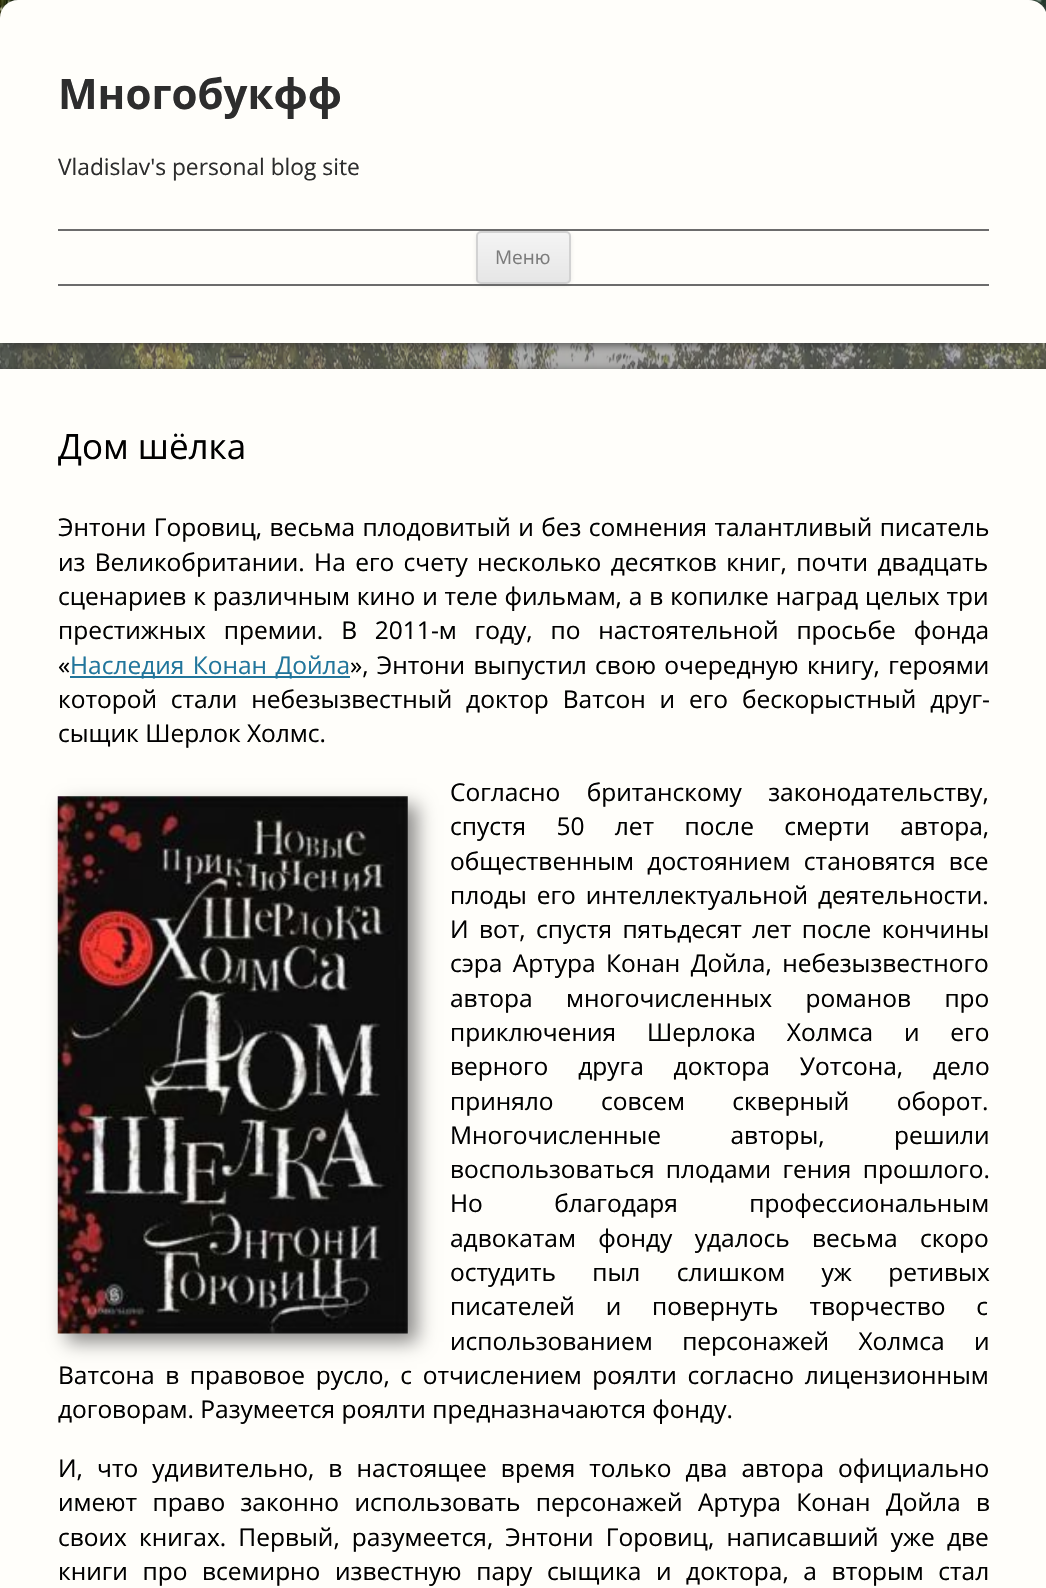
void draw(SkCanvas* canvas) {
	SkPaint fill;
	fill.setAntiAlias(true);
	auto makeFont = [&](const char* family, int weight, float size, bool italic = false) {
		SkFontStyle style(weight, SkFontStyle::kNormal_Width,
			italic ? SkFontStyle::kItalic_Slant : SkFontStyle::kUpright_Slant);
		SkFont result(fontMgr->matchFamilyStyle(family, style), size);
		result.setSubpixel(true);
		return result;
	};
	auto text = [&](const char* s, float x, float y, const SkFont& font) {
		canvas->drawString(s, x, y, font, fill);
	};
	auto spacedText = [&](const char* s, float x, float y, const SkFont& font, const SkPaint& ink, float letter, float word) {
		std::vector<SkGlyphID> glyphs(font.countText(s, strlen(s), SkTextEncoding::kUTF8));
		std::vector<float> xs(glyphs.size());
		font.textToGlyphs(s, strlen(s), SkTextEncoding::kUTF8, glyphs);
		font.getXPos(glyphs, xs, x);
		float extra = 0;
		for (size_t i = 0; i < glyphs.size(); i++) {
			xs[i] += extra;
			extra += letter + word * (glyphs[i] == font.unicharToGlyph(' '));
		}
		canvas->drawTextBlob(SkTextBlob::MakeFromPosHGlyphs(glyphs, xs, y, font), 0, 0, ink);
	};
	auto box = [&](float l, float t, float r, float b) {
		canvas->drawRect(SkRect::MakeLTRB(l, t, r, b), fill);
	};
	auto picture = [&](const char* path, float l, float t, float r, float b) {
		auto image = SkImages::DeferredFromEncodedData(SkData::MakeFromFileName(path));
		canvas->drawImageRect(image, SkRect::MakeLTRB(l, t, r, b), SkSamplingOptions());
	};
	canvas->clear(0xFFFFFFFF);
	picture("image0.png", 0, 0, 1046, 369);
	fill.setColor(0xBF323232);
	fill.setMaskFilter(SkMaskFilter::MakeBlur(kNormal_SkBlurStyle, 4.5f));
	canvas->drawRoundRect(SkRect::MakeLTRB(2, 2, 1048, 345), 18, 18, fill);
	fill.setMaskFilter(nullptr);
	fill.setColor(0xFFFFFEFA);
	canvas->drawPath(SkPathBuilder().moveTo(18, 0).lineTo(1029, 0).cubicTo(1039, 0, 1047, 8, 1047, 18).lineTo(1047, 343).lineTo(0, 343).lineTo(0, 18).cubicTo(0, 8, 8, 0, 18, 0).close().detach(), fill);
	fill.setColor(0xFF6C6C6C);
	box(58, 229, 989, 231);
	box(58, 284, 989, 286);
	fill.setColor(0x1A404040);
	fill.setMaskFilter(SkMaskFilter::MakeBlur(kNormal_SkBlurStyle, 2));
	canvas->drawRoundRect(SkRect::MakeLTRB(476, 233, 571, 285), 5, 5, fill);
	fill.setMaskFilter(nullptr);
	canvas->save();
	canvas->clipPath(SkPathBuilder().moveTo(481, 231).lineTo(566, 231).cubicTo(569, 231, 571, 233, 571, 236).lineTo(571, 279).cubicTo(571, 282, 569, 284, 566, 284).lineTo(481, 284).cubicTo(478, 284, 476, 282, 476, 279).lineTo(476, 236).cubicTo(476, 233, 478, 231, 481, 231).close().detach(), true);
	{
		const SkColor colors[] = {0xFFF4F4F4, 0xFFE6E6E6};
		const float stops[] = {0, 1};
		const SkPoint ends[] = {{523, 233}, {523, 282}};
		fill.setShader(SkGradientShader::MakeLinear(ends, colors, stops, 2, SkTileMode::kClamp));
		fill.setAlpha(255);
	}
	box(476, 233, 571, 282);
	canvas->restore();
	fill.setStyle(SkPaint::kStroke_Style);
	fill.setStrokeWidth(2);
	fill.setShader(nullptr);
	fill.setColor(0xFFD2D2D2);
	canvas->drawRoundRect(SkRect::MakeLTRB(477, 232, 570, 283), 4, 4, fill);
	fill.setStyle(SkPaint::kFill_Style);
	fill.setColor(0xBF323232);
	fill.setMaskFilter(SkMaskFilter::MakeBlur(kNormal_SkBlurStyle, 4.5f));
	canvas->drawRect(SkRect::MakeLTRB(2, 371, 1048, 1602), fill);
	fill.setMaskFilter(nullptr);
	fill.setColor(0xFFFFFEFA);
	box(0, 369, 1046, 1588);
	fill.setColor(0xFF21759B);
	box(70, 676, 350, 678);
	fill.setColor(0x73000000);
	fill.setMaskFilter(SkMaskFilter::MakeBlur(kNormal_SkBlurStyle, 9));
	canvas->drawRect(SkRect::MakeLTRB(67, 805, 417, 1342), fill);
	fill.setMaskFilter(nullptr);
	picture("image1.png", 57, 796, 408, 1334);
	auto font1 = makeFont("Open Sans", 700, 42);
	fill.setColor(0xFF2D2D2D);
	text("Многобукфф", 58, 109, font1);
	auto font2 = makeFont("Open Sans", 400, 22.75f);
	text("Vladislav's personal blog site", 58, 175, font2);
	auto font3 = makeFont("Open Sans", 400, 19);
	fill.setColor(0xFF7C7C7C);
	text("Меню", 495, 264, font3);
	auto font4 = makeFont("Open Sans", 400, 35);
	fill.setColor(0xFF000000);
	text("Дом шёлка", 58, 459, font4);
	auto font5 = makeFont("Open Sans", 400, 24.5f);
	spacedText("Энтони Горовиц, весьма плодовитый и без сомнения талантливый писатель", 58, 536, font5, fill, 0, 1);
	spacedText("из Великобритании. На его счету несколько десятков книг, почти двадцать", 58, 571, font5, fill, 0, 3);
	spacedText("сценариев к различным кино и теле фильмам, а в копилке наград целых три", 58, 605, font5, fill, 0, 0.5f);
	spacedText("престижных премии. В 2011-м году, по настоятельной просьбе фонда", 58, 639, font5, fill, 0, 11.5f);
	text("«", 58, 674, font5);
	fill.setColor(0xFF21759B);
	spacedText("Наследия Конан Дойла", 70, 674, font5, fill, 0, 2);
	fill.setColor(0xFF000000);
	spacedText("», Энтони выпустил свою очередную книгу, героями", 350, 674, font5, fill, 0, 2);
	spacedText("которой стали небезызвестный доктор Ватсон и его бескорыстный друг-", 58, 708, font5, fill, 0, 7.5f);
	text("сыщик Шерлок Холмс.", 58, 742, font5);
	spacedText("Согласно британскому законодательству,", 450, 801, font5, fill, 0, 20);
	spacedText("спустя 50 лет после смерти автора,", 450, 835, font5, fill, 0, 24);
	spacedText("общественным достоянием становятся все", 450, 870, font5, fill, 0, 7);
	spacedText("плоды его интеллектуальной деятельности.", 450, 904, font5, fill, 0, 3.5f);
	spacedText("И вот, спустя пятьдесят лет после кончины", 450, 938, font5, fill, 0, 4);
	spacedText("сэра Артура Конан Дойла, небезызвестного", 450, 972, font5, fill, 0, 4);
	spacedText("автора многочисленных романов про", 450, 1007, font5, fill, 0, 27);
	spacedText("приключения Шерлока Холмса и его", 450, 1041, font5, fill, 0, 24.5f);
	spacedText("верного друга доктора Уотсона, дело", 450, 1075, font5, fill, 0, 23.5f);
	spacedText("приняло совсем скверный оборот.", 450, 1110, font5, fill, 0, 41);
	spacedText("Многочисленные авторы, решили", 450, 1144, font5, fill, 0, 63);
	spacedText("воспользоваться плодами гения прошлого.", 450, 1178, font5, fill, 0, 5);
	spacedText("Но благодаря профессиональным", 450, 1212, font5, fill, 0, 65);
	spacedText("адвокатам фонду удалось весьма скоро", 450, 1247, font5, fill, 0, 16);
	spacedText("остудить пыл слишком уж ретивых", 450, 1281, font5, fill, 0, 30);
	spacedText("писателей и повернуть творчество с", 450, 1315, font5, fill, 0, 24.5f);
	spacedText("использованием персонажей Холмса и", 450, 1350, font5, fill, 0, 23);
	spacedText("Ватсона в правовое русло, с отчислением роялти согласно лицензионным", 58, 1384, font5, fill, 0, 4.25f);
	text("договорам. Разумеется роялти предназначаются фонду.", 58, 1418, font5);
	spacedText("И, что удивительно, в настоящее время только два автора официально", 58, 1477, font5, fill, 0, 7.75f);
	spacedText("имеют право законно использовать персонажей Артура Конан Дойла в", 58, 1511, font5, fill, 0, 9);
	spacedText("своих книгах. Первый, разумеется, Энтони Горовиц, написавший уже две", 58, 1546, font5, fill, 0, 5.75f);
	spacedText("книги про всемирно известную пару сыщика и доктора, а вторым стал", 58, 1580, font5, fill, 0, 8.25f);
}
